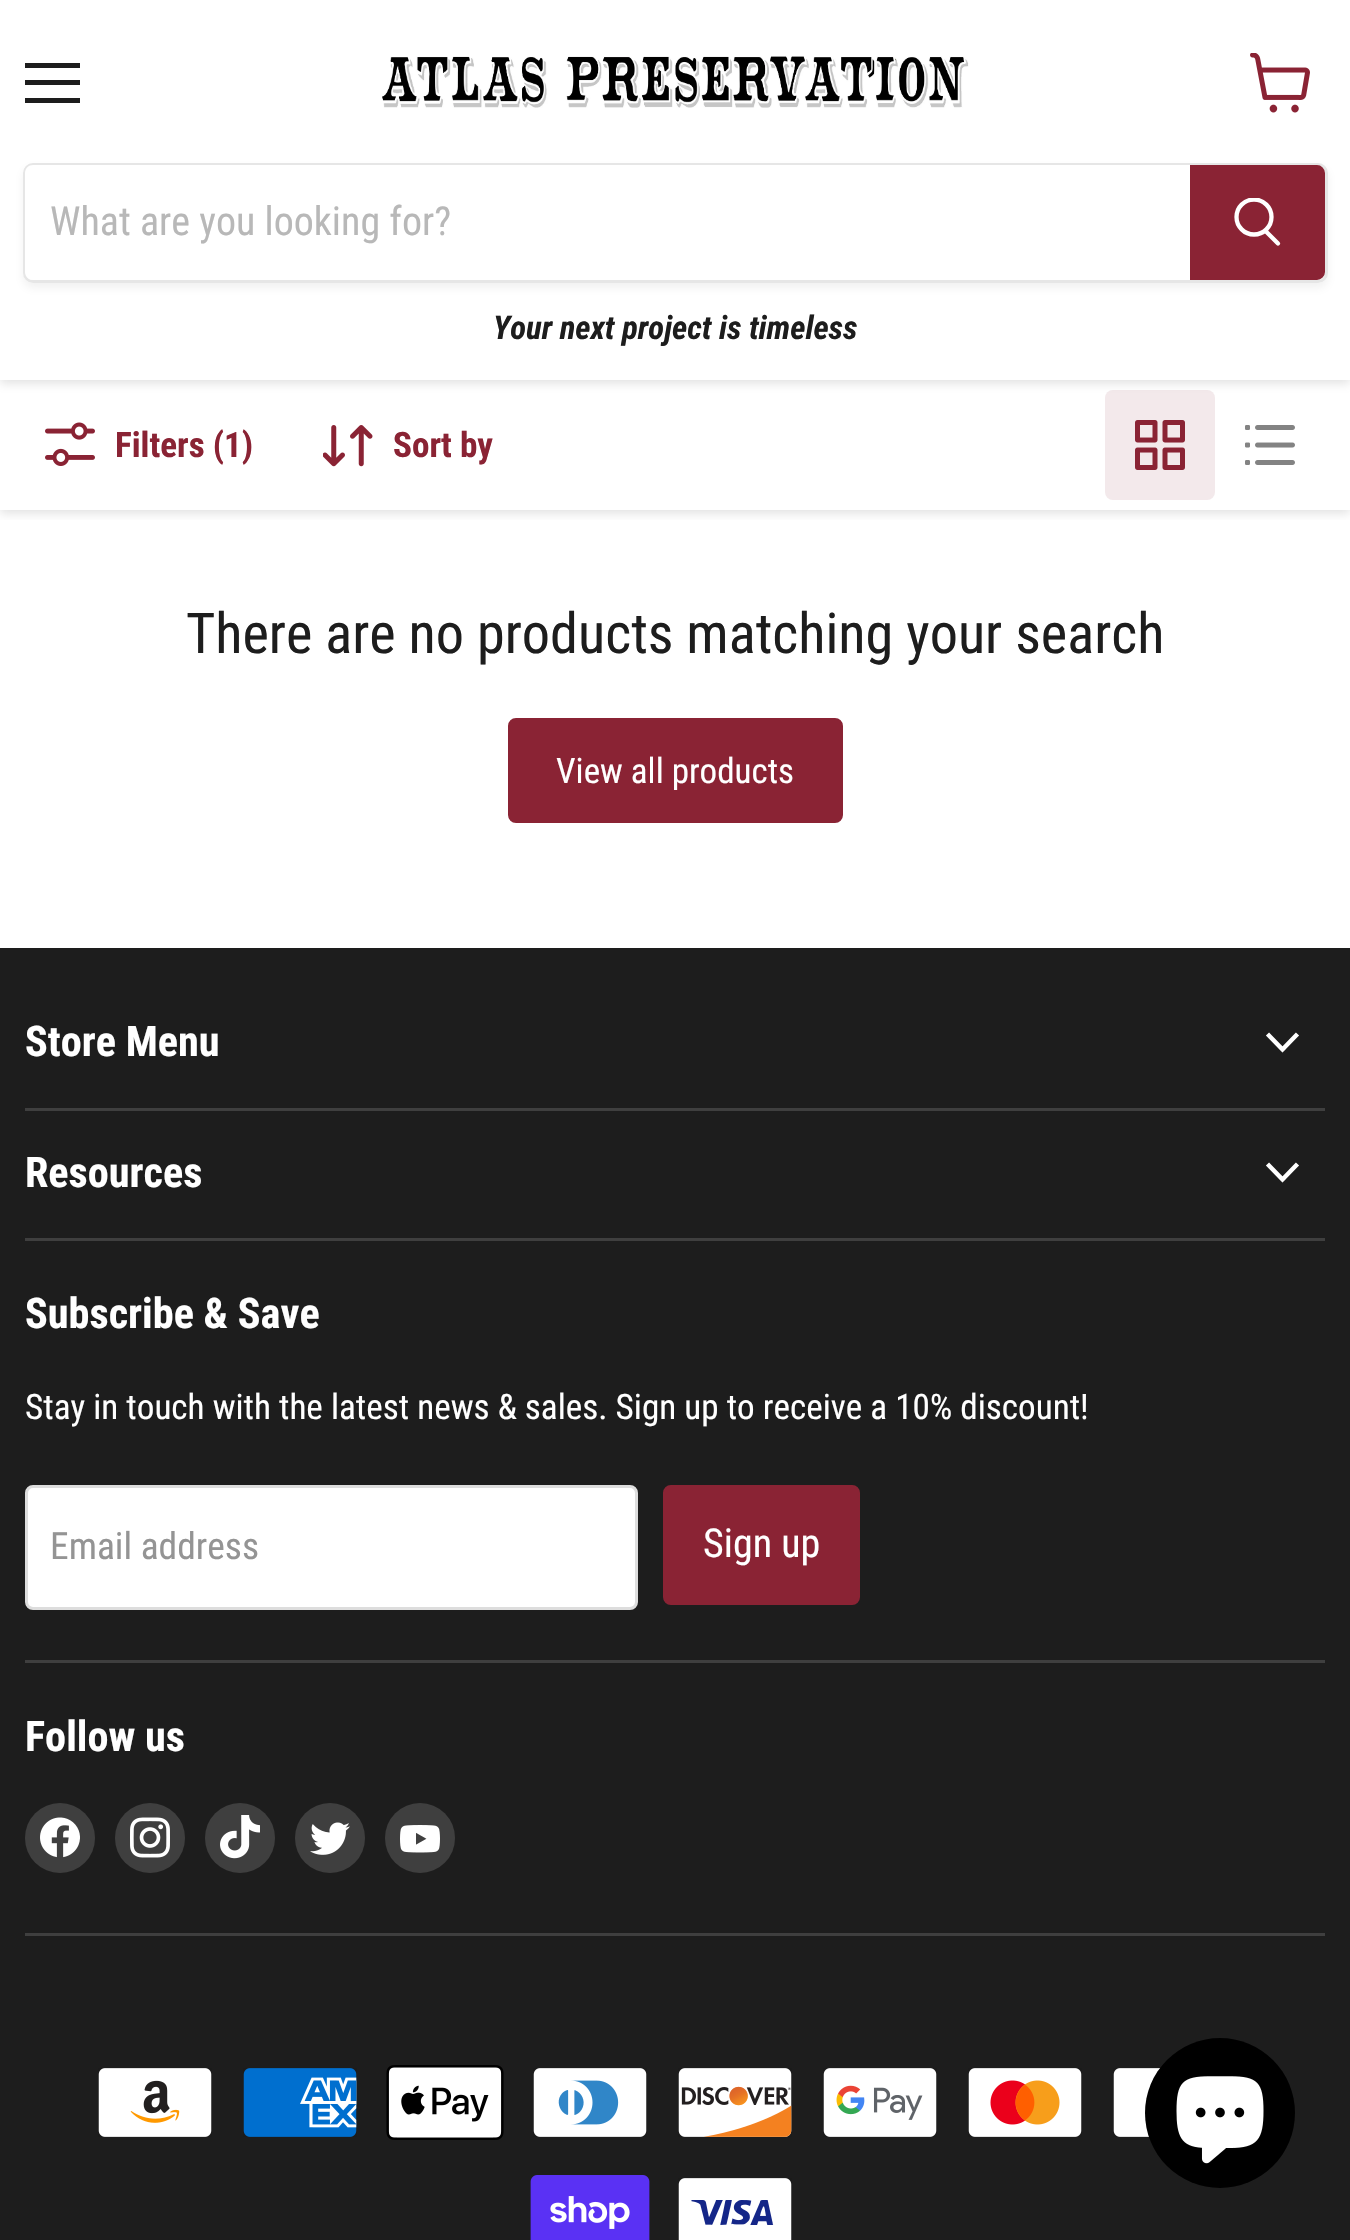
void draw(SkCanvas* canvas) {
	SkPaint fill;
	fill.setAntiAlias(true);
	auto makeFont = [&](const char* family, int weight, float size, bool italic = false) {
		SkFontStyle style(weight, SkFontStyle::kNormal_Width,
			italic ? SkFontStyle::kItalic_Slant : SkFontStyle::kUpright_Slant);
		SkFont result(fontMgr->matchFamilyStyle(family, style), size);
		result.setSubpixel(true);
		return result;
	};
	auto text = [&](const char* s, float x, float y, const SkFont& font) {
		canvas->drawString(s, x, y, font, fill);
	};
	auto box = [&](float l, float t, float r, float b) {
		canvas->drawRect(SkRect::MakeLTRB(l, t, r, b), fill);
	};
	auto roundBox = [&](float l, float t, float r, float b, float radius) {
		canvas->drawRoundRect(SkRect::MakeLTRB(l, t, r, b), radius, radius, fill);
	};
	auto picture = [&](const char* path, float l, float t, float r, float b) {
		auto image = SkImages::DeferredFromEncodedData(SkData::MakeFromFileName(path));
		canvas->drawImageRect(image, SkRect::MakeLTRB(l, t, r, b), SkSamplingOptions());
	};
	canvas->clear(0xFFFFFFFF);
	canvas->save();
	canvas->clipRect(SkRect::MakeLTRB(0, 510, 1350, 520));
	fill.setColor(0x40808080);
	fill.setMaskFilter(SkMaskFilter::MakeBlur(kNormal_SkBlurStyle, 5));
	canvas->drawRect(SkRect::MakeLTRB(0, 383, 1350, 513), fill);
	fill.setMaskFilter(nullptr);
	canvas->restore();
	fill.setColor(0xFFF3E9EB);
	roundBox(1105, 390, 1215, 500, 8);
	fill.setColor(0x40808080);
	fill.setMaskFilter(SkMaskFilter::MakeBlur(kNormal_SkBlurStyle, 5));
	canvas->drawRect(SkRect::MakeLTRB(0, 3, 1350, 383), fill);
	fill.setMaskFilter(nullptr);
	fill.setColor(0xFFFFFFFF);
	box(0, 0, 1350, 380);
	fill.setColor(0xFF1D1D1D);
	box(25, 63, 80, 68);
	box(25, 80, 80, 85);
	box(25, 98, 80, 103);
	picture("image0.png", 1250, 53, 1310, 113);
	picture("image1.png", 382, 56, 969, 108);
	canvas->save();
	canvas->clipPath(SkPathBuilder(SkPathFillType::kEvenOdd).moveTo(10, 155).lineTo(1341, 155).lineTo(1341, 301).lineTo(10, 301).close().moveTo(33, 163).lineTo(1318, 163).cubicTo(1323.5f, 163, 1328, 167.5f, 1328, 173).lineTo(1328, 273).cubicTo(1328, 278.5f, 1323.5f, 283, 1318, 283).lineTo(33, 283).cubicTo(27.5f, 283, 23, 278.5f, 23, 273).lineTo(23, 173).cubicTo(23, 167.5f, 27.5f, 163, 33, 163).close().detach(), true);
	fill.setColor(0x1C808080);
	fill.setMaskFilter(SkMaskFilter::MakeBlur(kNormal_SkBlurStyle, 4));
	canvas->drawRoundRect(SkRect::MakeLTRB(23, 168, 1328, 288), 10, 10, fill);
	fill.setMaskFilter(nullptr);
	canvas->restore();
	fill.setStyle(SkPaint::kStroke_Style);
	fill.setStrokeWidth(3);
	fill.setColor(0x33808080);
	canvas->drawRoundRect(SkRect::MakeLTRB(24.5f, 164.5f, 1326.5f, 281.5f), 8.5f, 8.5f, fill);
	fill.setStyle(SkPaint::kFill_Style);
	fill.setColor(0xFFFFFFFF);
	canvas->drawPath(SkPathBuilder().moveTo(33, 165).lineTo(1190, 165).lineTo(1190, 280).lineTo(33, 280).cubicTo(28.5f, 280, 25, 276.5f, 25, 272).lineTo(25, 173).cubicTo(25, 168.5f, 28.5f, 165, 33, 165).close().detach(), fill);
	fill.setColor(0xFF8A2334);
	canvas->drawPath(SkPathBuilder().moveTo(1191.5f, 166.5f).lineTo(1317, 166.5f).cubicTo(1320.5f, 166.5f, 1323.5f, 169.5f, 1323.5f, 173).lineTo(1323.5f, 272).cubicTo(1323.5f, 275.5f, 1320.5f, 278.5f, 1317, 278.5f).lineTo(1191.5f, 278.5f).close().detach(), fill);
	fill.setStyle(SkPaint::kStroke_Style);
	canvas->drawPath(SkPathBuilder().moveTo(1191.5f, 166.5f).lineTo(1317, 166.5f).cubicTo(1320.5f, 166.5f, 1323.5f, 169.5f, 1323.5f, 173).lineTo(1323.5f, 272).cubicTo(1323.5f, 275.5f, 1320.5f, 278.5f, 1317, 278.5f).lineTo(1191.5f, 278.5f).close().detach(), fill);
	fill.setStrokeWidth(4.3f);
	fill.setStrokeCap(SkPaint::kRound_Cap);
	fill.setColor(0xFFFFFFFF);
	canvas->drawPath(SkPathBuilder().moveTo(1278, 243.5f).lineTo(1266, 231.5f).detach(), fill);
	canvas->save();
	canvas->clipRect(SkRect::MakeLTRB(1233, 198, 1283, 250));
	fill.setStrokeCap(SkPaint::kButt_Cap);
	canvas->drawCircle(1254, 217, 17.5f, fill);
	canvas->restore();
	picture("image2.png", 45, 422, 95, 466);
	picture("image3.png", 323, 425, 373, 467);
	picture("image4.png", 1135, 420, 1185, 470);
	picture("image5.png", 1245, 425, 1295, 465);
	fill.setStyle(SkPaint::kFill_Style);
	fill.setColor(0xFF8A2334);
	canvas->drawRoundRect(SkRect::MakeLTRB(509.5f, 719.5f, 841.5f, 821.5f), 6.5f, 6.5f, fill);
	fill.setStyle(SkPaint::kStroke_Style);
	fill.setStrokeWidth(3);
	canvas->drawRoundRect(SkRect::MakeLTRB(509.5f, 719.5f, 841.5f, 821.5f), 6.5f, 6.5f, fill);
	fill.setStyle(SkPaint::kFill_Style);
	fill.setColor(0xFF1D1D1D);
	box(0, 948, 1350, 2240);
	fill.setColor(0xFF3F3F3F);
	box(25, 1108, 1325, 1111);
	fill.setStyle(SkPaint::kStroke_Style);
	fill.setStrokeWidth(4.4f);
	fill.setStrokeCap(SkPaint::kSquare_Cap);
	fill.setColor(0xFFFFFFFF);
	canvas->drawPath(SkPathBuilder().moveTo(1282.5f, 1049.5f).lineTo(1296, 1035.5f).moveTo(1282.5f, 1049.5f).lineTo(1269, 1035.5f).detach(), fill);
	fill.setStyle(SkPaint::kFill_Style);
	fill.setColor(0xFF3F3F3F);
	box(25, 1238, 1325, 1241);
	fill.setStyle(SkPaint::kStroke_Style);
	fill.setColor(0xFFFFFFFF);
	canvas->drawPath(SkPathBuilder().moveTo(1282.5f, 1179.5f).lineTo(1296, 1165.5f).moveTo(1282.5f, 1179.5f).lineTo(1269, 1165.5f).detach(), fill);
	fill.setStyle(SkPaint::kFill_Style);
	fill.setColor(0xFF3F3F3F);
	box(25, 1660, 1325, 1663);
	fill.setColor(0xFFFFFFFF);
	canvas->drawRoundRect(SkRect::MakeLTRB(26.5f, 1486.5f, 636.5f, 1608.5f), 6.5f, 6.5f, fill);
	fill.setStyle(SkPaint::kStroke_Style);
	fill.setStrokeWidth(3);
	fill.setStrokeCap(SkPaint::kButt_Cap);
	fill.setColor(0xFFDDDDDD);
	canvas->drawRoundRect(SkRect::MakeLTRB(26.5f, 1486.5f, 636.5f, 1608.5f), 6.5f, 6.5f, fill);
	fill.setStyle(SkPaint::kFill_Style);
	fill.setColor(0xFF8A2334);
	canvas->drawRoundRect(SkRect::MakeLTRB(664.5f, 1486.5f, 858.5f, 1603.5f), 6.5f, 6.5f, fill);
	fill.setStyle(SkPaint::kStroke_Style);
	canvas->drawRoundRect(SkRect::MakeLTRB(664.5f, 1486.5f, 858.5f, 1603.5f), 6.5f, 6.5f, fill);
	fill.setStyle(SkPaint::kFill_Style);
	fill.setColor(0xFF3F3F3F);
	box(25, 1933, 1325, 1936);
	canvas->drawCircle(60, 1838, 35, fill);
	picture("image6.png", 40, 1817, 80, 1858);
	canvas->drawCircle(150, 1838, 35, fill);
	picture("image7.png", 130, 1817, 170, 1858);
	canvas->drawCircle(240, 1838, 35, fill);
	picture("image8.png", 220, 1815, 260, 1859);
	canvas->drawCircle(330, 1838, 35, fill);
	picture("image9.png", 310, 1822, 350, 1855);
	canvas->drawCircle(420, 1838, 35, fill);
	picture("image10.png", 400, 1825, 440, 1853);
	picture("image11.png", 98, 2068, 212, 2137);
	picture("image12.png", 243, 2068, 357, 2137);
	picture("image13.png", 386, 2065, 504, 2140);
	picture("image14.png", 533, 2068, 647, 2137);
	picture("image15.png", 678, 2068, 792, 2137);
	picture("image16.png", 823, 2068, 937, 2137);
	picture("image17.png", 968, 2068, 1082, 2137);
	picture("image18.png", 1113, 2068, 1160, 2137);
	picture("image19.png", 530, 2175, 650, 2240);
	picture("image20.png", 678, 2178, 792, 2240);
	fill.setColor(0xFF000000);
	canvas->drawCircle(1220, 2113, 75, fill);
	picture("image21.png", 1176, 2076, 1264, 2164);
	auto font1 = makeFont("Roboto Condensed", 400, 40);
	fill.setColor(0xFFB8B8B8);
	text("What are you looking for?", 50, 235, font1);
	auto font2 = makeFont("Roboto Condensed", 700, 32.75f, true);
	fill.setColor(0xFF1D1D1D);
	text("Your next project is timeless", 493, 339, font2);
	auto font3 = makeFont("Roboto Condensed", 700, 35.15f);
	fill.setColor(0xFF8A2334);
	text("Filters (1)", 115, 457, font3);
	text("Sort by", 393, 457, font3);
	auto font4 = makeFont("Roboto Condensed", 400, 56.25f);
	fill.setColor(0xFF1D1D1D);
	text("There are no products matching your search", 186, 653, font4);
	auto font5 = makeFont("Roboto Condensed", 400, 35);
	fill.setColor(0xFFFFFFFF);
	text("View all products", 556, 783, font5);
	auto font6 = makeFont("Roboto Condensed", 700, 42.25f);
	text("Store Menu", 25, 1056, font6);
	text("Resources", 25, 1187, font6);
	text("Subscribe & Save", 25, 1328, font6);
	auto font7 = makeFont("Roboto Condensed", 400, 35.15f);
	text("Stay in touch with the latest news & sales. Sign up to receive a 10% discount!", 25, 1419, font7);
	auto font8 = makeFont("Roboto Condensed", 400, 37.5f);
	fill.setColor(0xFF949494);
	text("Email address", 50, 1559, font8);
	fill.setColor(0xFFFFFFFF);
	text("Sign up", 703, 1557, font1);
	text("Follow us", 25, 1751, font6);
}
